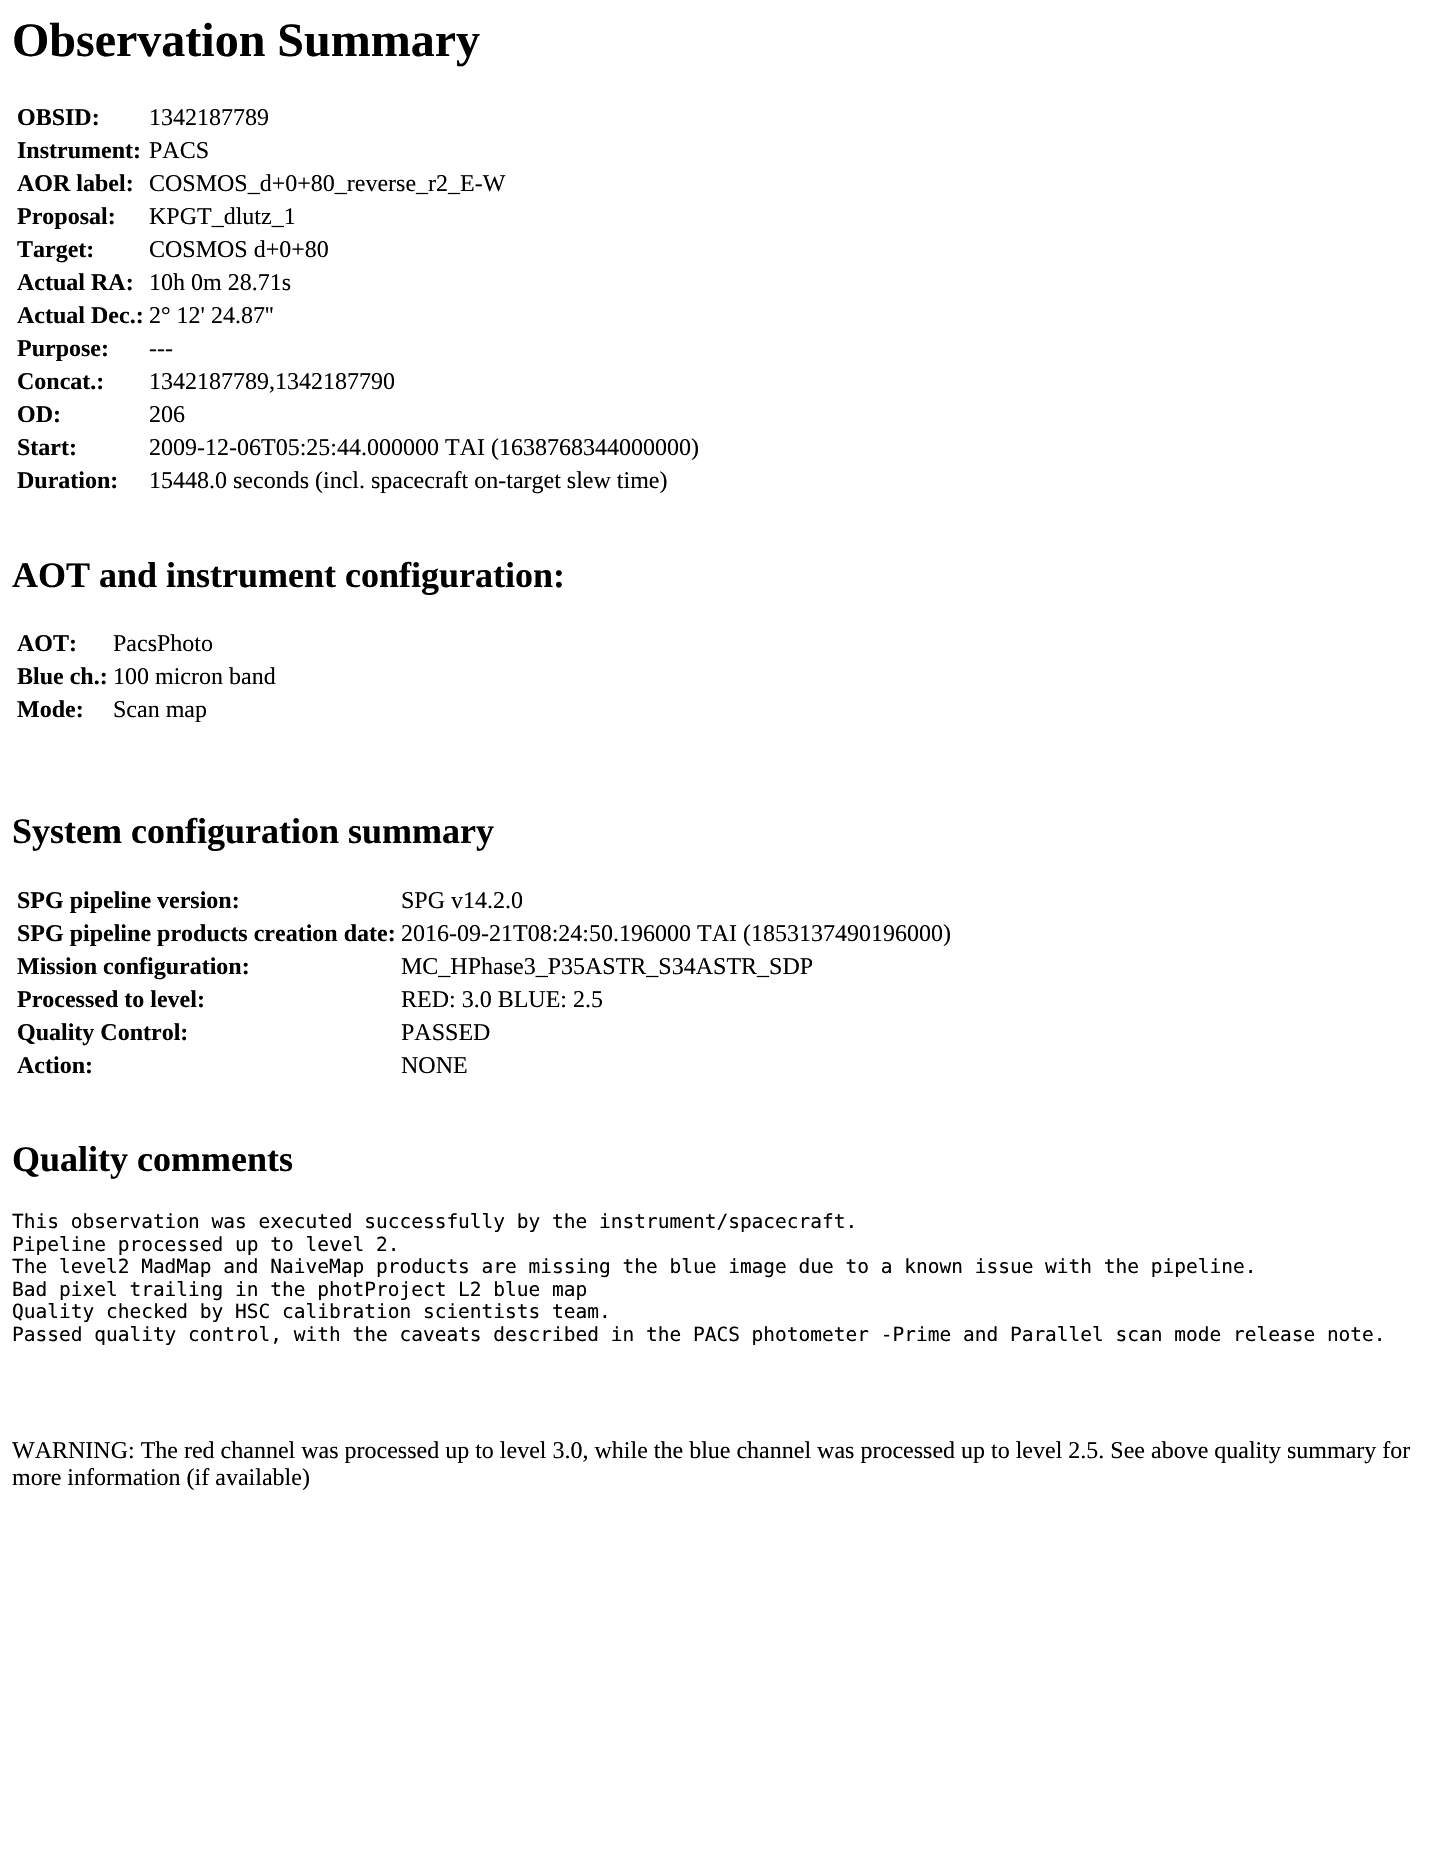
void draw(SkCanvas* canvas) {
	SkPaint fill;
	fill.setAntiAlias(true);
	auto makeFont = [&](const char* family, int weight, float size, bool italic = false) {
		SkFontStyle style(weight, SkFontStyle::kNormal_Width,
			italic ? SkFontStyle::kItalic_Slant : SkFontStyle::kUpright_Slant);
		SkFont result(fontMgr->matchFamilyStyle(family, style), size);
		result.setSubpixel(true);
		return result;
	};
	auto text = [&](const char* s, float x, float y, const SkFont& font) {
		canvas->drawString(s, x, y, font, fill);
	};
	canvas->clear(0xFFFFFFFF);
	auto font1 = makeFont("Liberation Serif", 700, 48);
	fill.setColor(0xFF000000);
	text("Observation Summary", 12, 56, font1);
	auto font2 = makeFont("Liberation Serif", 700, 24);
	text("OBSID:", 17, 125, font2);
	auto font3 = makeFont("Liberation Serif", 400, 24);
	text("1342187789", 149, 125, font3);
	text("Instrument:", 17, 158, font2);
	text("PACS", 149, 158, font3);
	text("AOR label:", 17, 191, font2);
	text("COSMOS_d+0+80_reverse_r2_E-W", 149, 191, font3);
	text("Proposal:", 17, 224, font2);
	text("KPGT_dlutz_1", 149, 224, font3);
	text("Target:", 17, 257, font2);
	text("COSMOS d+0+80", 149, 257, font3);
	text("Actual RA:", 17, 290, font2);
	text("10h 0m 28.71s", 149, 290, font3);
	text("Actual Dec.:", 17, 323, font2);
	text("2° 12' 24.87''", 149, 323, font3);
	text("Purpose:", 17, 356, font2);
	text("---", 149, 356, font3);
	text("Concat.:", 17, 389, font2);
	text("1342187789,1342187790", 149, 389, font3);
	text("OD:", 17, 422, font2);
	text("206", 149, 422, font3);
	text("Start:", 17, 455, font2);
	text("2009-12-06T05:25:44.000000 TAI (1638768344000000)", 149, 455, font3);
	text("Duration:", 17, 488, font2);
	text("15448.0 seconds (incl. spacecraft on-target slew time)", 149, 488, font3);
	auto font4 = makeFont("Liberation Serif", 700, 36);
	text("AOT and instrument configuration:", 12, 587, font4);
	text("AOT:", 17, 651, font2);
	text("PacsPhoto", 113, 651, font3);
	text("Blue ch.:", 17, 684, font2);
	text("100 micron band", 113, 684, font3);
	text("Mode:", 17, 717, font2);
	text("Scan map", 113, 717, font3);
	text("System configuration summary", 12, 843, font4);
	text("SPG pipeline version:", 17, 908, font2);
	text("SPG v14.2.0", 401, 908, font3);
	text("SPG pipeline products creation date:", 17, 941, font2);
	text("2016-09-21T08:24:50.196000 TAI (1853137490196000)", 401, 941, font3);
	text("Mission configuration:", 17, 974, font2);
	text("MC_HPhase3_P35ASTR_S34ASTR_SDP", 401, 974, font3);
	text("Processed to level:", 17, 1007, font2);
	text("RED: 3.0 BLUE: 2.5", 401, 1007, font3);
	text("Quality Control:", 17, 1040, font2);
	text("PASSED", 401, 1040, font3);
	text("Action:", 17, 1073, font2);
	text("NONE", 401, 1073, font3);
	text("Quality comments", 12, 1171, font4);
	auto font5 = makeFont("DejaVu Sans Mono", 400, 19.5f);
	text("This observation was executed successfully by the instrument/spacecraft.", 12, 1228, font5);
	text("Pipeline processed up to level 2.", 12, 1251, font5);
	text("The level2 MadMap and NaiveMap products are missing the blue image due to a known issue with the pipeline.", 12, 1273, font5);
	text("Bad pixel trailing in the photProject L2 blue map", 12, 1296, font5);
	text("Quality checked by HSC calibration scientists team.", 12, 1318, font5);
	text("Passed quality control, with the caveats described in the PACS photometer -Prime and Parallel scan mode release note.", 12, 1341, font5);
	text("WARNING: The red channel was processed up to level 3.0, while the blue channel was processed up to level 2.5. See above quality summary for", 12, 1458, font3);
	text("more information (if available)", 12, 1485, font3);
}
